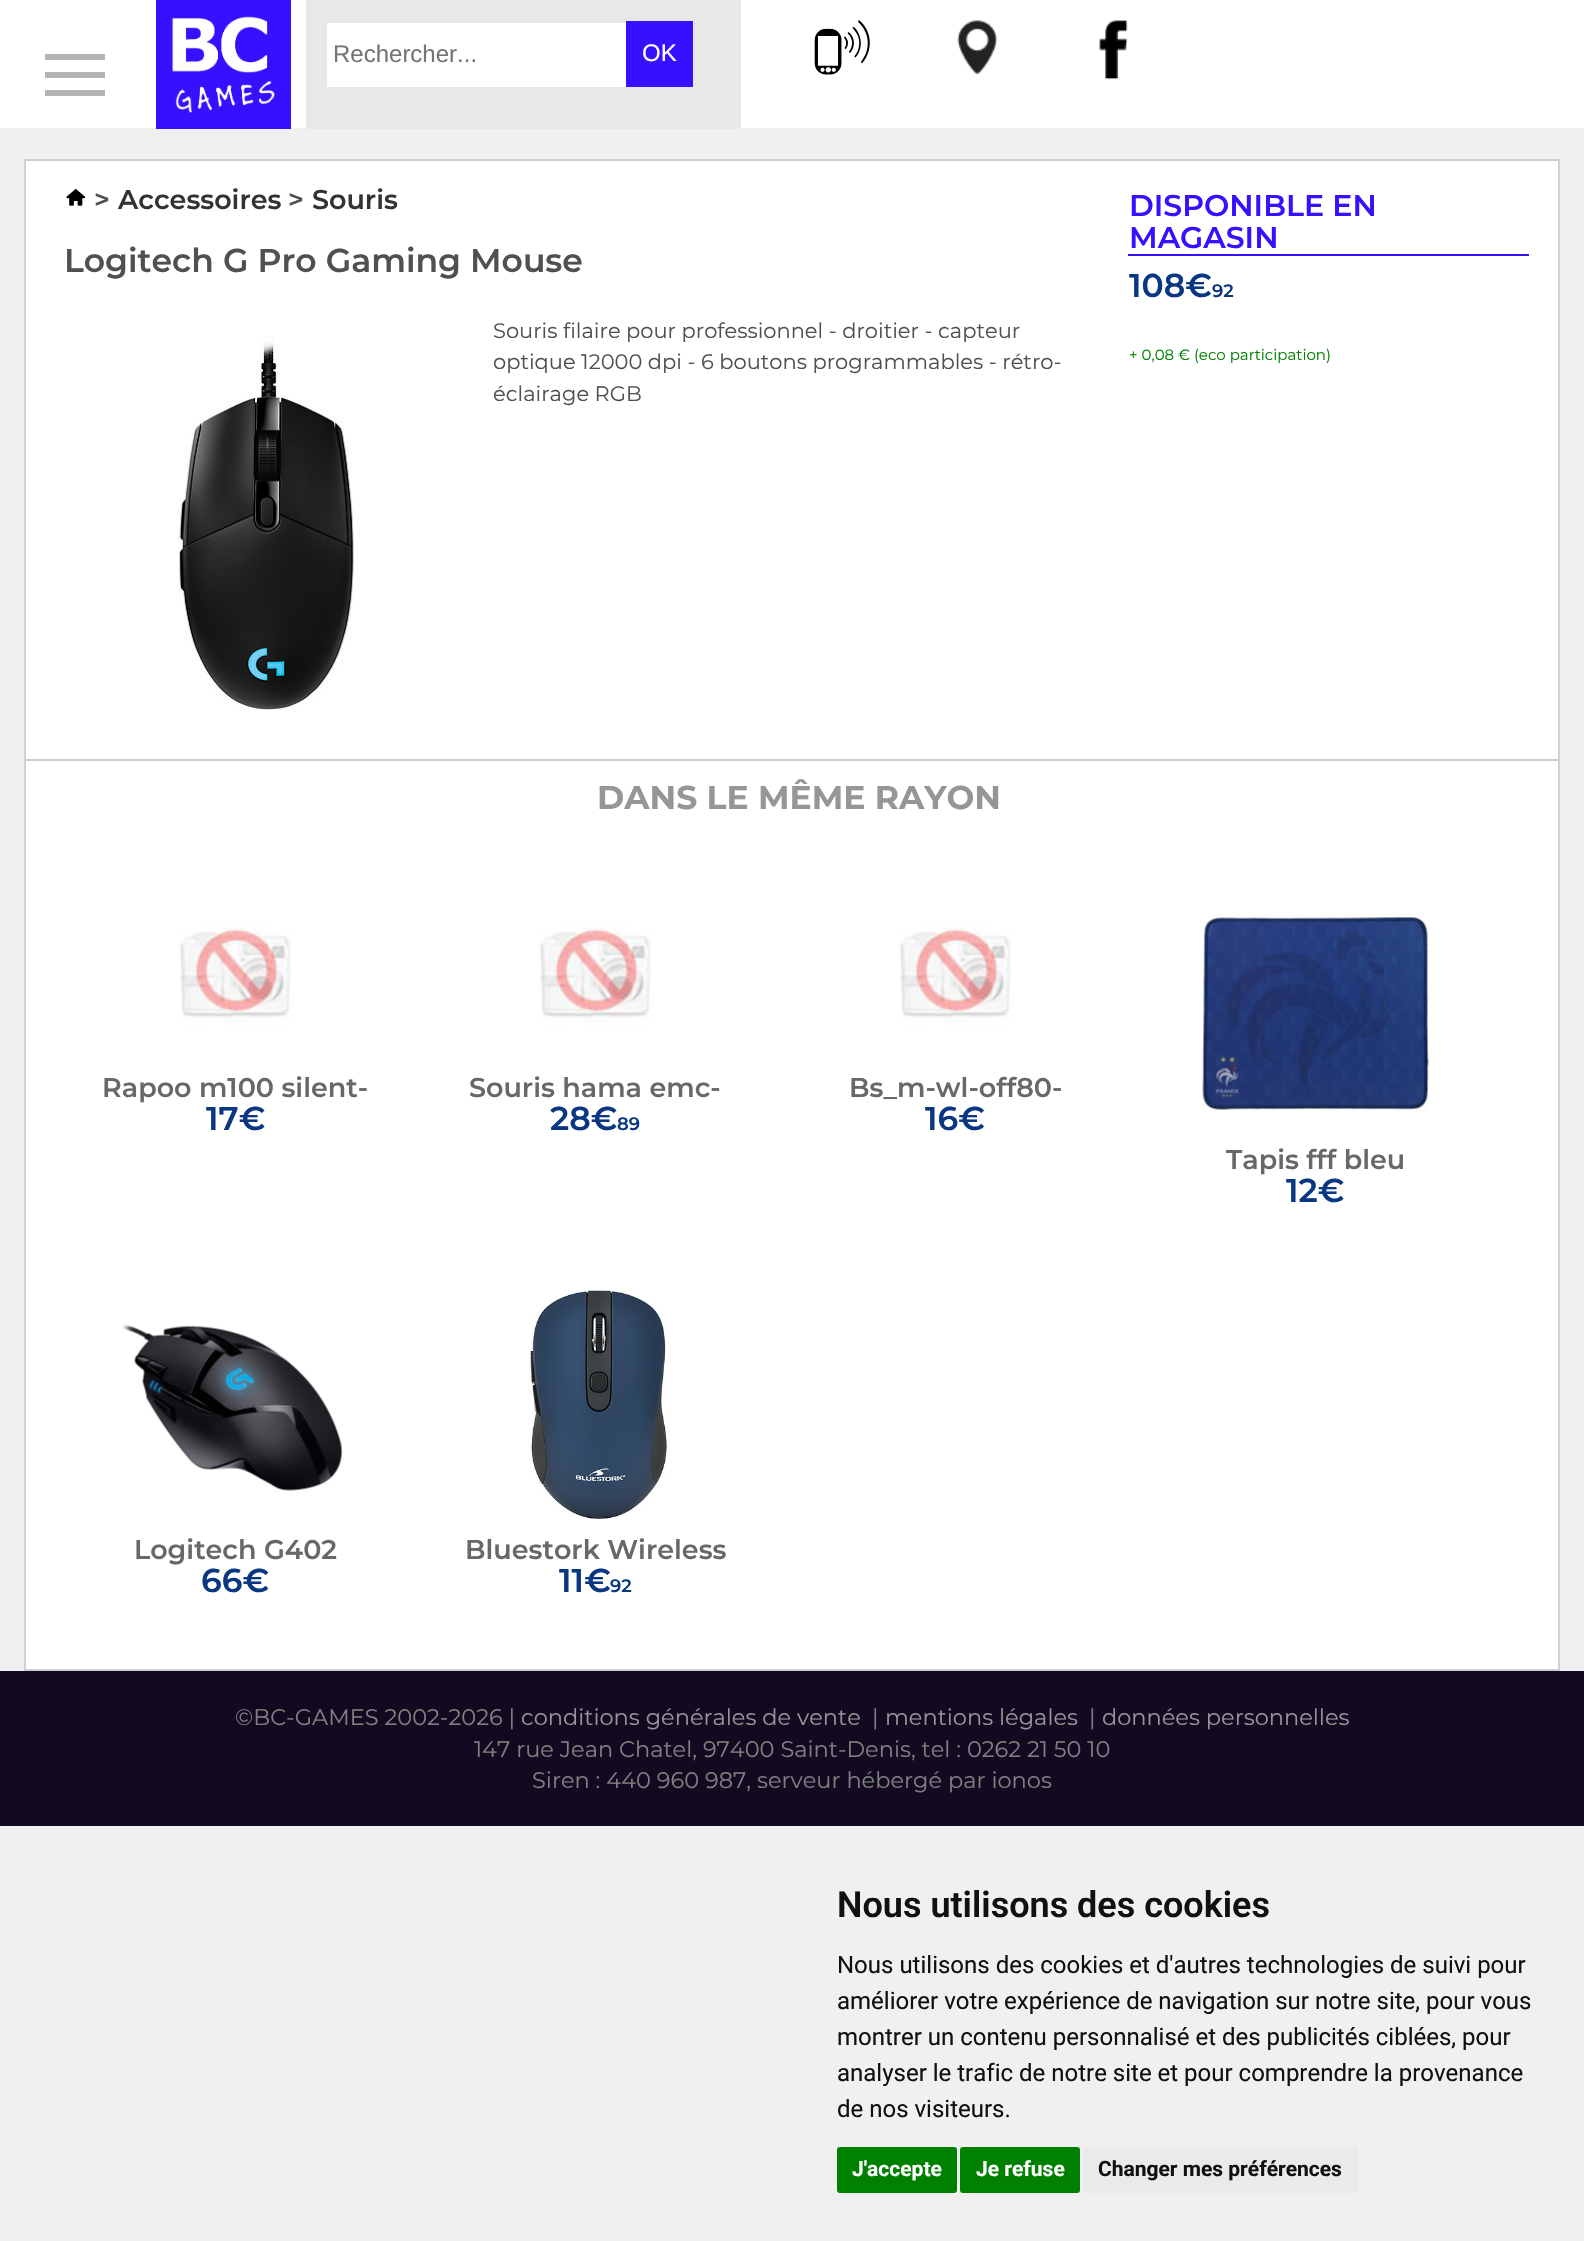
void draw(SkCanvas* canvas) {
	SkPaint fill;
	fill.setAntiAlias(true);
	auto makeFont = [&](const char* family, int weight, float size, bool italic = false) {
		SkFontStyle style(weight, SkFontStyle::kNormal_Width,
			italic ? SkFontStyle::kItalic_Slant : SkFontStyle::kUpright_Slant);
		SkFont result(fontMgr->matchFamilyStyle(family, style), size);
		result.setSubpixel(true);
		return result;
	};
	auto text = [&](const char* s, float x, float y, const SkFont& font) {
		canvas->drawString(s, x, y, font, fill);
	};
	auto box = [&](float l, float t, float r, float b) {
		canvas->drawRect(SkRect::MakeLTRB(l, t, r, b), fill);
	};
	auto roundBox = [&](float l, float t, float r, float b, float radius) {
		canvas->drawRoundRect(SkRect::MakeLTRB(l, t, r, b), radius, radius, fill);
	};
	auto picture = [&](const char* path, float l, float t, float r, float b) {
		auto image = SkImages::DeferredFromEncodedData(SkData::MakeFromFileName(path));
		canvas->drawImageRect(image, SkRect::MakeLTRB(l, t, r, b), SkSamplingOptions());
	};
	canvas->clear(0xFFF0F0F0);
	fill.setColor(0xFFFFFFFF);
	box(0, 0, 1584, 128);
	fill.setColor(0xFFB3B3B3);
	box(45, 72, 105, 78);
	box(45, 54, 105, 60);
	box(45, 90, 105, 96);
	picture("image0.png", 156, 0, 291, 129);
	fill.setColor(0xFFE8E8E8);
	box(306, 0, 741, 129);
	fill.setColor(0xFFFFFFFF);
	box(327, 23, 626, 87);
	fill.setColor(0xFF3511FF);
	box(626, 21, 693, 87);
	picture("image1.png", 814, 20, 870, 75);
	picture("image2.png", 957, 20, 998, 75);
	picture("image3.png", 1099, 20, 1128, 80);
	fill.setColor(0xFFFFFFFF);
	canvas->drawRect(SkRect::MakeLTRB(25, 160, 1559, 1670), fill);
	fill.setStyle(SkPaint::kStroke_Style);
	fill.setStrokeWidth(2);
	fill.setColor(0xFFCFCFCF);
	canvas->drawRect(SkRect::MakeLTRB(25, 160, 1559, 1670), fill);
	picture("image4.png", 66, 188, 86, 206);
	picture("image5.png", 177, 336, 354, 711);
	fill.setStyle(SkPaint::kFill_Style);
	fill.setColor(0xFF3511FF);
	box(1128, 254, 1529, 256);
	fill.setColor(0xFFCFCFCF);
	box(26, 759, 1559, 761);
	picture("image6.png", 179, 920, 292, 1027);
	picture("image7.png", 539, 920, 652, 1027);
	picture("image6.png", 899, 920, 1012, 1027);
	picture("image8.png", 1202, 912, 1429, 1111);
	picture("image9.png", 122, 1324, 343, 1491);
	picture("image10.png", 528, 1290, 667, 1519);
	fill.setColor(0xFF120A21);
	box(0, 1671, 1584, 1826);
	fill.setColor(0xFF008000);
	roundBox(837, 2147, 957, 2193, 3);
	roundBox(960, 2147, 1080, 2193, 3);
	fill.setColor(0xFFEAEAEA);
	roundBox(1083, 2147, 1358, 2193, 3);
	auto font1 = makeFont("Liberation Sans", 400, 24);
	fill.setColor(0xFF757575);
	text("Rechercher...", 333, 62, font1);
	fill.setColor(0xFFFFFFFF);
	text("OK", 642, 61, font1);
	auto font2 = makeFont("Montserrat", 600, 27);
	fill.setColor(0xFF505050);
	text(">", 94, 209, font2);
	fill.setColor(0xFF333333);
	text("Accessoires", 118, 209, font2);
	fill.setColor(0xFF505050);
	text(">", 288, 209, font2);
	fill.setColor(0xFF333333);
	text("Souris", 312, 209, font2);
	auto font3 = makeFont("Montserrat", 600, 33);
	fill.setColor(0xFF505050);
	text("Logitech G Pro Gaming Mouse", 64, 272, font3);
	auto font4 = makeFont("Montserrat", 400, 21);
	text("Souris filaire pour professionnel - droitier - capteur", 493, 338, font4);
	text("optique 12000 dpi - 6 boutons programmables - rétro-", 493, 369, font4);
	text("éclairage RGB", 493, 401, font4);
	auto font5 = makeFont("Montserrat", 600, 30);
	fill.setColor(0xFF3511FF);
	text("DISPONIBLE EN", 1129, 216, font5);
	text("MAGASIN", 1129, 248, font5);
	fill.setColor(0xFF0A3782);
	text("108€", 1129, 297, font3);
	auto font6 = makeFont("Montserrat", 600, 18);
	text("92", 1212, 297, font6);
	auto font7 = makeFont("Montserrat", 400, 15);
	fill.setColor(0xFF008000);
	text("+ 0,08 € (eco participation)", 1129, 360, font7);
	auto font8 = makeFont("Montserrat", 700, 33);
	fill.setColor(0xFF969696);
	text("DANS LE MÊME RAYON", 597, 809, font8);
	fill.setColor(0xFF686868);
	text("Rapoo m100 silent-", 102, 1097, font2);
	fill.setColor(0xFF0A3782);
	text("17€", 206, 1130, font3);
	fill.setColor(0xFF686868);
	text("Souris hama emc-", 469, 1097, font2);
	fill.setColor(0xFF0A3782);
	text("28€", 550, 1130, font3);
	text("89", 617, 1130, font6);
	fill.setColor(0xFF686868);
	text("Bs_m-wl-off80-", 849, 1097, font2);
	fill.setColor(0xFF0A3782);
	text("16€", 925, 1130, font3);
	fill.setColor(0xFF686868);
	text("Tapis fff bleu", 1226, 1169, font2);
	fill.setColor(0xFF0A3782);
	text("12€", 1286, 1202, font3);
	fill.setColor(0xFF686868);
	text("Logitech G402", 134, 1559, font2);
	fill.setColor(0xFF0A3782);
	text("66€", 201, 1592, font3);
	fill.setColor(0xFF686868);
	text("Bluestork Wireless", 465, 1559, font2);
	fill.setColor(0xFF0A3782);
	text("11€", 559, 1592, font3);
	text("92", 610, 1592, font6);
	auto font9 = makeFont("Montserrat", 400, 22.5f);
	fill.setColor(0xFF808080);
	text("©BC-GAMES 2002-2026 |", 235, 1725, font9);
	fill.setColor(0xFF969696);
	text("conditions générales de vente", 521, 1725, font9);
	fill.setColor(0xFF808080);
	text("|", 872, 1725, font9);
	fill.setColor(0xFF969696);
	text("mentions légales", 885, 1725, font9);
	fill.setColor(0xFF808080);
	text("|", 1089, 1725, font9);
	fill.setColor(0xFF969696);
	text("données personnelles", 1102, 1725, font9);
	fill.setColor(0xFF808080);
	text("147 rue Jean Chatel, 97400 Saint-Denis, tel : 0262 21 50 10", 474, 1757, font9);
	text("Siren : 440 960 987, serveur hébergé par ionos", 532, 1788, font9);
	auto font10 = makeFont("Roboto", 600, 36);
	fill.setColor(0xFF111111);
	text("Nous utilisons des cookies", 837, 1917, font10);
	auto font11 = makeFont("Roboto", 400, 24);
	text("Nous utilisons des cookies et d'autres technologies de suivi pour", 837, 1973, font11);
	text("améliorer votre expérience de navigation sur notre site, pour vous", 837, 2009, font11);
	text("montrer un contenu personnalisé et des publicités ciblées, pour", 837, 2045, font11);
	text("analyser le trafic de notre site et pour comprendre la provenance", 837, 2081, font11);
	text("de nos visiteurs.", 837, 2117, font11);
	auto font12 = makeFont("Roboto", 700, 21);
	fill.setColor(0xFFFFFFFF);
	text("J'accepte", 852, 2176, font12);
	text("Je refuse", 976, 2176, font12);
	fill.setColor(0xFF111111);
	text("Changer mes préférences", 1098, 2176, font12);
}
